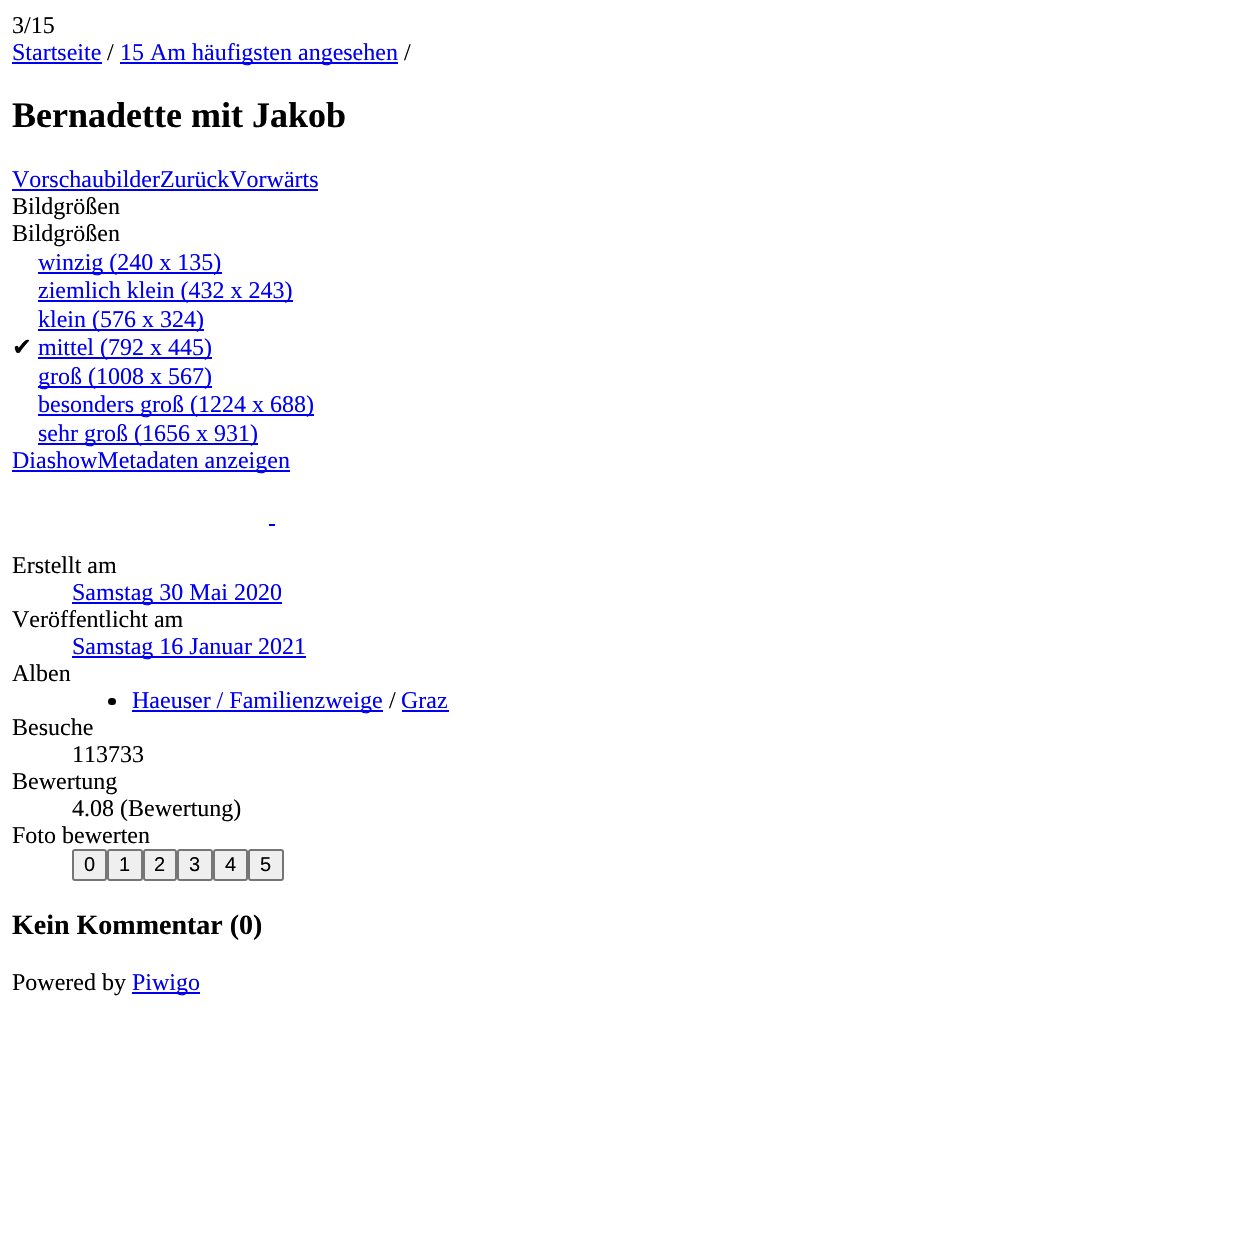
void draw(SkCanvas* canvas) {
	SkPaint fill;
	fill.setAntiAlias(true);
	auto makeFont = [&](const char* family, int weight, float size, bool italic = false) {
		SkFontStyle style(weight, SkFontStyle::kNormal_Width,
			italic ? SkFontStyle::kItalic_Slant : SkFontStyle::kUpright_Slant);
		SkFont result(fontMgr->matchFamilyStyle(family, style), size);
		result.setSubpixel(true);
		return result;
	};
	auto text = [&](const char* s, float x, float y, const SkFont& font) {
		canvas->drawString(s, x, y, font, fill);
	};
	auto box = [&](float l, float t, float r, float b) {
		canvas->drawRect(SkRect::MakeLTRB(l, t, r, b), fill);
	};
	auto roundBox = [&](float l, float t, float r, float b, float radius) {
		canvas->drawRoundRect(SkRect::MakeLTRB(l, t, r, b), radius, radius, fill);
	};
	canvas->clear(0xFFFFFFFF);
	fill.setColor(0xFF0000EE);
	box(12, 62, 102, 64);
	box(120, 62, 398, 64);
	box(12, 189, 318, 191);
	box(38, 272, 222, 274);
	box(38, 300, 293, 302);
	box(38, 329, 204, 331);
	box(38, 357, 212, 359);
	box(38, 386, 212, 388);
	box(38, 414, 314, 416);
	box(38, 443, 258, 445);
	box(12, 470, 290, 472);
	box(269, 524, 275, 526);
	box(72, 602, 282, 604);
	box(72, 656, 306, 658);
	fill.setColor(0xFF000000);
	roundBox(108, 698, 116, 705, 3.5f);
	fill.setColor(0xFF0000EE);
	box(132, 710, 383, 712);
	box(402, 710, 449, 712);
	fill.setColor(0xFFEFEFEF);
	canvas->drawRoundRect(SkRect::MakeLTRB(73, 850, 106, 880), 2, 2, fill);
	fill.setStyle(SkPaint::kStroke_Style);
	fill.setStrokeWidth(2);
	fill.setColor(0xFF767676);
	canvas->drawRoundRect(SkRect::MakeLTRB(73, 850, 106, 880), 2, 2, fill);
	fill.setStyle(SkPaint::kFill_Style);
	fill.setColor(0xFFEFEFEF);
	canvas->drawRoundRect(SkRect::MakeLTRB(108, 850, 142, 880), 2, 2, fill);
	fill.setStyle(SkPaint::kStroke_Style);
	fill.setColor(0xFF767676);
	canvas->drawRoundRect(SkRect::MakeLTRB(108, 850, 142, 880), 2, 2, fill);
	fill.setStyle(SkPaint::kFill_Style);
	fill.setColor(0xFFEFEFEF);
	canvas->drawRoundRect(SkRect::MakeLTRB(144, 850, 176, 880), 2, 2, fill);
	fill.setStyle(SkPaint::kStroke_Style);
	fill.setColor(0xFF767676);
	canvas->drawRoundRect(SkRect::MakeLTRB(144, 850, 176, 880), 2, 2, fill);
	fill.setStyle(SkPaint::kFill_Style);
	fill.setColor(0xFFEFEFEF);
	canvas->drawRoundRect(SkRect::MakeLTRB(178, 850, 212, 880), 2, 2, fill);
	fill.setStyle(SkPaint::kStroke_Style);
	fill.setColor(0xFF767676);
	canvas->drawRoundRect(SkRect::MakeLTRB(178, 850, 212, 880), 2, 2, fill);
	fill.setStyle(SkPaint::kFill_Style);
	fill.setColor(0xFFEFEFEF);
	canvas->drawRoundRect(SkRect::MakeLTRB(214, 850, 247, 880), 2, 2, fill);
	fill.setStyle(SkPaint::kStroke_Style);
	fill.setColor(0xFF767676);
	canvas->drawRoundRect(SkRect::MakeLTRB(214, 850, 247, 880), 2, 2, fill);
	fill.setStyle(SkPaint::kFill_Style);
	fill.setColor(0xFFEFEFEF);
	canvas->drawRoundRect(SkRect::MakeLTRB(249, 850, 283, 880), 2, 2, fill);
	fill.setStyle(SkPaint::kStroke_Style);
	fill.setColor(0xFF767676);
	canvas->drawRoundRect(SkRect::MakeLTRB(249, 850, 283, 880), 2, 2, fill);
	fill.setStyle(SkPaint::kFill_Style);
	fill.setColor(0xFF0000EE);
	box(132, 992, 200, 994);
	auto font1 = makeFont("Liberation Serif", 400, 24);
	fill.setColor(0xFF000000);
	text("3/15", 12, 33, font1);
	fill.setColor(0xFF0000EE);
	text("Startseite", 12, 60, font1);
	fill.setColor(0xFF000000);
	text("/", 107, 60, font1);
	fill.setColor(0xFF0000EE);
	text("15 Am häufigsten angesehen", 120, 60, font1);
	fill.setColor(0xFF000000);
	text("/", 404, 60, font1);
	auto font2 = makeFont("Liberation Serif", 700, 36);
	text("Bernadette mit Jakob", 12, 127, font2);
	fill.setColor(0xFF0000EE);
	text("VorschaubilderZurückVorwärts", 12, 187, font1);
	fill.setColor(0xFF000000);
	text("Bildgrößen", 12, 214, font1);
	text("Bildgrößen", 12, 241, font1);
	fill.setColor(0xFF0000EE);
	text("winzig (240 x 135)", 38, 270, font1);
	text("ziemlich klein (432 x 243)", 38, 298, font1);
	text("klein (576 x 324)", 38, 327, font1);
	auto font3 = makeFont("DejaVu Sans", 400, 24);
	fill.setColor(0xFF000000);
	text("✔", 12, 355, font3);
	fill.setColor(0xFF0000EE);
	text("mittel (792 x 445)", 38, 355, font1);
	text("groß (1008 x 567)", 38, 384, font1);
	text("besonders groß (1224 x 688)", 38, 412, font1);
	text("sehr groß (1656 x 931)", 38, 441, font1);
	text("DiashowMetadaten anzeigen", 12, 468, font1);
	fill.setColor(0xFF000000);
	text("Erstellt am", 12, 573, font1);
	fill.setColor(0xFF0000EE);
	text("Samstag 30 Mai 2020", 72, 600, font1);
	fill.setColor(0xFF000000);
	text("Veröffentlicht am", 12, 627, font1);
	fill.setColor(0xFF0000EE);
	text("Samstag 16 Januar 2021", 72, 654, font1);
	fill.setColor(0xFF000000);
	text("Alben", 12, 681, font1);
	fill.setColor(0xFF0000EE);
	text("Haeuser / Familienzweige", 132, 708, font1);
	fill.setColor(0xFF000000);
	text("/", 389, 708, font1);
	fill.setColor(0xFF0000EE);
	text("Graz", 401, 708, font1);
	fill.setColor(0xFF000000);
	text("Besuche", 12, 735, font1);
	text("113733", 72, 762, font1);
	text("Bewertung", 12, 789, font1);
	text("4.08 (Bewertung)", 72, 816, font1);
	text("Foto bewerten", 12, 843, font1);
	auto font4 = makeFont("Liberation Sans", 400, 20);
	text("0", 84, 871, font4);
	text("1", 119, 871, font4);
	text("2", 154, 871, font4);
	text("3", 189, 871, font4);
	text("4", 225, 871, font4);
	text("5", 260, 871, font4);
	auto font5 = makeFont("Liberation Serif", 700, 28);
	text("Kein Kommentar (0)", 12, 934, font5);
	text("Powered by", 12, 990, font1);
	fill.setColor(0xFF0000EE);
	text("Piwigo", 132, 990, font1);
}
